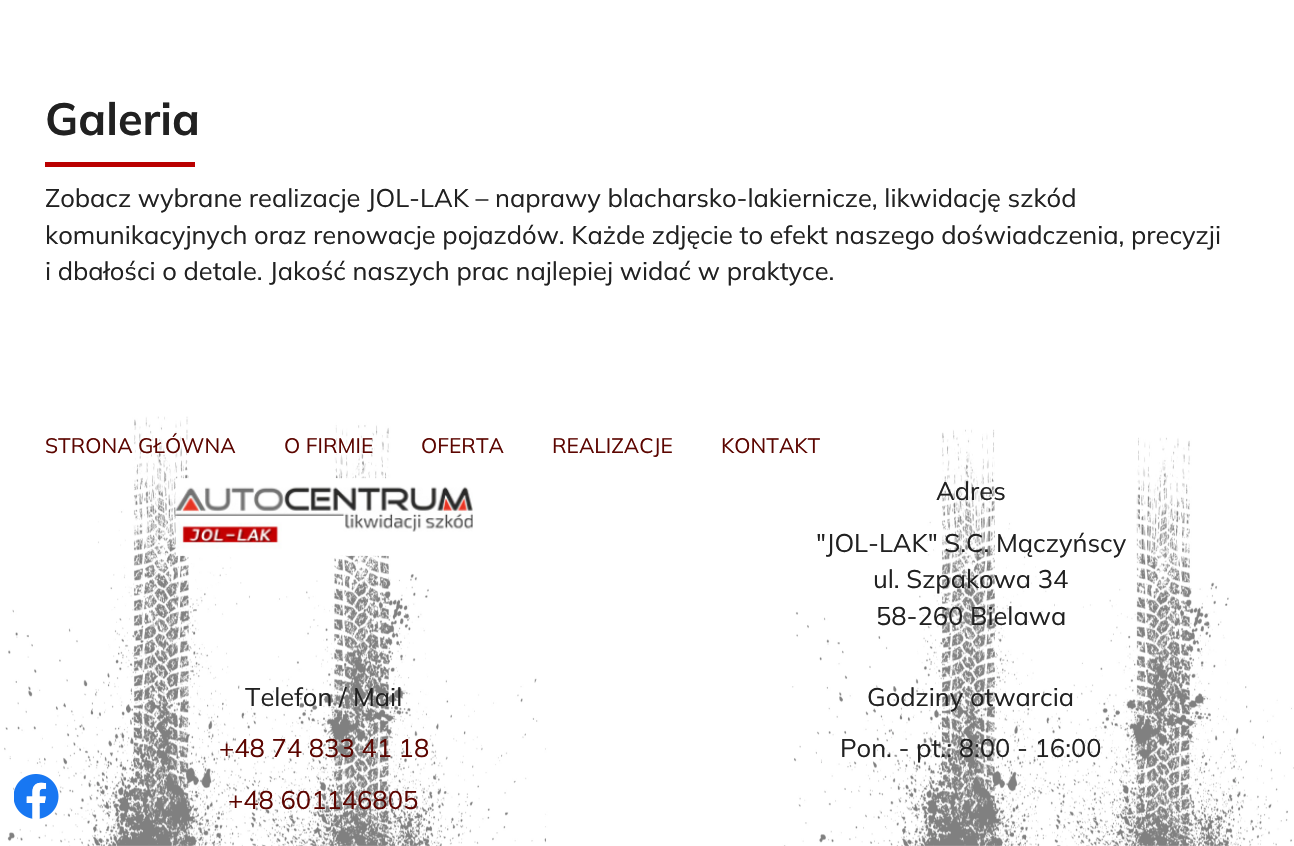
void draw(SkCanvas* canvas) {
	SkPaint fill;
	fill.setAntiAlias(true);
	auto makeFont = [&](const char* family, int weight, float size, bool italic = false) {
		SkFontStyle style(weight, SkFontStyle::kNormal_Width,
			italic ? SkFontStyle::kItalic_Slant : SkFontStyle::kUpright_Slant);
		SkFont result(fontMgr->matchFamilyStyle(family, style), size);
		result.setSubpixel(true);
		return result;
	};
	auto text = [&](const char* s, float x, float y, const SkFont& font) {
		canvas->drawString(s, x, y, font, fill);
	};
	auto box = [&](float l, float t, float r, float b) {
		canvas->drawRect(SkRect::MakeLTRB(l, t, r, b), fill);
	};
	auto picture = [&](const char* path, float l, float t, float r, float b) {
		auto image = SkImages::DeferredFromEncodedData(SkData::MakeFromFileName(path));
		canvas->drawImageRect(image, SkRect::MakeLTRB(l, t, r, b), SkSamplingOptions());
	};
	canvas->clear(0xFFFFFFFF);
	fill.setColor(0xFFBA0000);
	box(45, 162, 195, 167);
	picture("image2.png", 4, 416, 1294, 846);
	picture("image0.png", 14, 774, 59, 819);
	picture("image1.png", 175, 478, 473, 556);
	auto font1 = makeFont("Mulish", 700, 45);
	fill.setColor(0xFF212121);
	text("Galeria", 45, 135, font1);
	auto font2 = makeFont("Mulish", 400, 25.5f);
	text("Zobacz wybrane realizacje JOL-LAK – naprawy blacharsko-lakiernicze, likwidację szkód", 45, 207, font2);
	text("komunikacyjnych oraz renowacje pojazdów. Każde zdjęcie to efekt naszego doświadczenia, precyzji", 45, 244, font2);
	text("i dbałości o detale. Jakość naszych prac najlepiej widać w praktyce.", 45, 280, font2);
	auto font3 = makeFont("Mulish", 400, 21);
	fill.setColor(0xFF5C0500);
	text("STRONA GŁÓWNA", 45, 453, font3);
	text("O FIRMIE", 284, 453, font3);
	text("OFERTA", 421, 453, font3);
	text("REALIZACJE", 552, 453, font3);
	text("KONTAKT", 721, 453, font3);
	fill.setColor(0xFF212121);
	text("Adres", 936, 500, font2);
	text("\"JOL-LAK\" S.C. Mączyńscy", 816, 552, font2);
	text("ul. Szpakowa 34", 873, 588, font2);
	text("58-260 Bielawa", 876, 625, font2);
	text("Telefon / Mail", 245, 706, font2);
	fill.setColor(0xFF5C0500);
	text("+48 74 833 41 18", 219, 757, font2);
	text("+48 601146805", 228, 809, font2);
	fill.setColor(0xFF212121);
	text("Godziny otwarcia", 867, 706, font2);
	text("Pon. - pt.: 8:00 - 16:00", 840, 757, font2);
}
